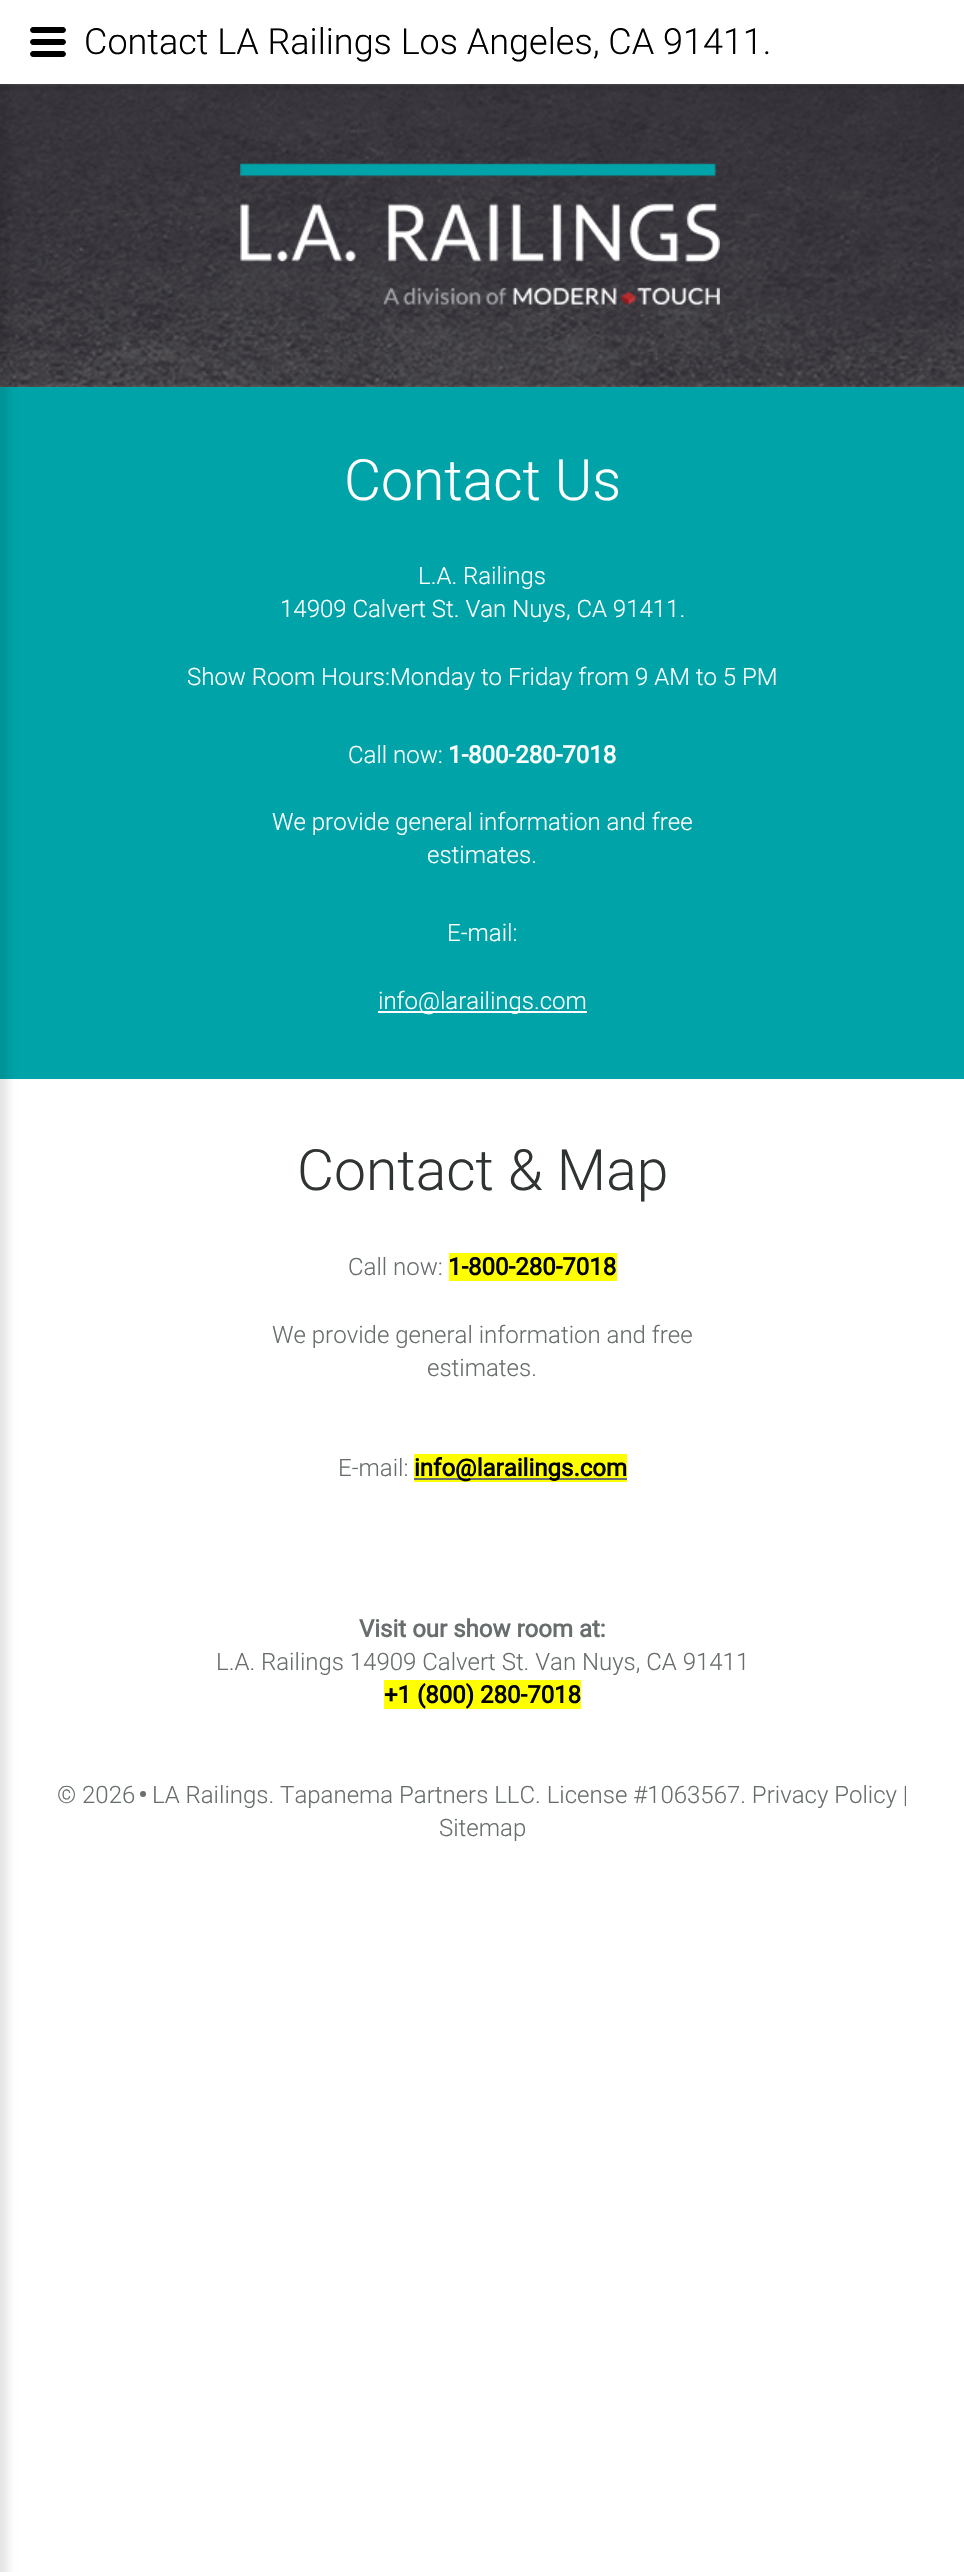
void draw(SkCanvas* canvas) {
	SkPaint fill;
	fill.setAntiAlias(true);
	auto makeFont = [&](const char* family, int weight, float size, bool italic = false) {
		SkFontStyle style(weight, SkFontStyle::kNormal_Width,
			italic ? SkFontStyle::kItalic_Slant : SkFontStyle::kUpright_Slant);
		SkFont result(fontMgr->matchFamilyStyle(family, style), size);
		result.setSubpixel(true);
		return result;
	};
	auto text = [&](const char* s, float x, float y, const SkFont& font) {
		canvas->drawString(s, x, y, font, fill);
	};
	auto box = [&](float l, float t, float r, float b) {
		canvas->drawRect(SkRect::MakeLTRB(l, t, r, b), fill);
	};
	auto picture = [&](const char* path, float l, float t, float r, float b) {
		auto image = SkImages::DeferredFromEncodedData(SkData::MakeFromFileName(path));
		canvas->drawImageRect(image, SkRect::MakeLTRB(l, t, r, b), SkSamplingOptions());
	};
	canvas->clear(0xFFFFFFFF);
	picture("image0.png", 0, 84, 964, 387);
	fill.setColor(0xFF00A3A8);
	box(0, 387, 964, 1079);
	fill.setColor(0x1A000000);
	fill.setMaskFilter(SkMaskFilter::MakeBlur(kNormal_SkBlurStyle, 4));
	canvas->drawRect(SkRect::MakeLTRB(-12, -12, 8, 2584), fill);
	fill.setMaskFilter(nullptr);
	fill.setMaskFilter(SkMaskFilter::MakeBlur(kNormal_SkBlurStyle, 2));
	canvas->drawRect(SkRect::MakeLTRB(0, 5, 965, 89), fill);
	fill.setMaskFilter(nullptr);
	fill.setColor(0xFFFFFFFF);
	box(0, 0, 964, 84);
	fill.setColor(0xFF000000);
	canvas->drawPath(SkPathBuilder().moveTo(63, 45).lineTo(33, 45).cubicTo(31.5f, 45, 30, 43.5f, 30, 42).cubicTo(30, 40.5f, 31.5f, 39, 33, 39).lineTo(63, 39).cubicTo(64.5f, 39, 66, 40.5f, 66, 42).cubicTo(66, 43.5f, 64.5f, 45, 63, 45).close().moveTo(63, 57).lineTo(33, 57).cubicTo(31.5f, 57, 30, 55.5f, 30, 54).cubicTo(30, 52.5f, 31.5f, 51, 33, 51).lineTo(63, 51).cubicTo(64.5f, 51, 66, 52.5f, 66, 54).cubicTo(66, 55.5f, 64.5f, 57, 63, 57).close().moveTo(63, 33).lineTo(33, 33).cubicTo(31.5f, 33, 30, 31.5f, 30, 30).cubicTo(30, 28.5f, 31.5f, 27, 33, 27).lineTo(63, 27).cubicTo(64.5f, 27, 66, 28.5f, 66, 30).cubicTo(66, 31.5f, 64.5f, 33, 63, 33).close().detach(), fill);
	picture("image1.png", 240, 163, 720, 305);
	fill.setColor(0xFFFFFFFF);
	box(378, 1011, 587, 1013);
	fill.setColor(0xFFFFFF00);
	box(449, 1253, 617, 1281);
	box(414, 1454, 627, 1482);
	fill.setColor(0xFF686D6E);
	box(414, 1478, 627, 1480);
	fill.setColor(0xFFFFFF00);
	box(384, 1680, 581, 1709);
	fill.setColor(0xFF686D6E);
	canvas->drawCircle(143, 1794, 3, fill);
	auto font1 = makeFont("Roboto", 300, 36);
	fill.setColor(0xFF000000);
	text("Contact LA Railings Los Angeles, CA 91411.", 84, 54, font1);
	auto font2 = makeFont("Roboto", 300, 57);
	fill.setColor(0xFFFFFFFF);
	text("Contact Us", 344, 500, font2);
	auto font3 = makeFont("Roboto", 300, 24);
	text("L.A. Railings", 418, 584, font3);
	text("14909 Calvert St. Van Nuys, CA 91411.", 280, 617, font3);
	text("Show Room Hours:Monday to Friday from 9 AM to 5 PM", 187, 685, font3);
	text("Call now:", 348, 763, font3);
	auto font4 = makeFont("Roboto", 700, 24);
	text("1-800-280-7018", 448, 763, font4);
	text("We provide general information and free", 272, 830, font3);
	text("estimates.", 427, 863, font3);
	text("E-mail:", 447, 941, font3);
	text("info@larailings.com", 378, 1009, font3);
	fill.setColor(0xFF303334);
	text("Contact & Map", 297, 1190, font2);
	fill.setColor(0xFF686D6E);
	text("Call now:", 348, 1275, font3);
	fill.setColor(0xFF000000);
	text("1-800-280-7018", 448, 1275, font4);
	fill.setColor(0xFF686D6E);
	text("We provide general information and free", 272, 1343, font3);
	text("estimates.", 427, 1376, font3);
	text("E-mail:", 338, 1476, font3);
	fill.setColor(0xFF000000);
	text("info@larailings.com", 414, 1476, font4);
	fill.setColor(0xFF686D6E);
	text("Visit our show room at:", 359, 1637, font4);
	text("L.A. Railings 14909 Calvert St. Van Nuys, CA 91411", 216, 1670, font3);
	fill.setColor(0xFF000000);
	text("+1 (800) 280-7018", 384, 1703, font4);
	fill.setColor(0xFF686D6E);
	text("© 2026", 57, 1803, font3);
	text("LA Railings. Tapanema Partners LLC. License #1063567. Privacy Policy |", 152, 1803, font3);
	text("Sitemap", 439, 1836, font3);
}
